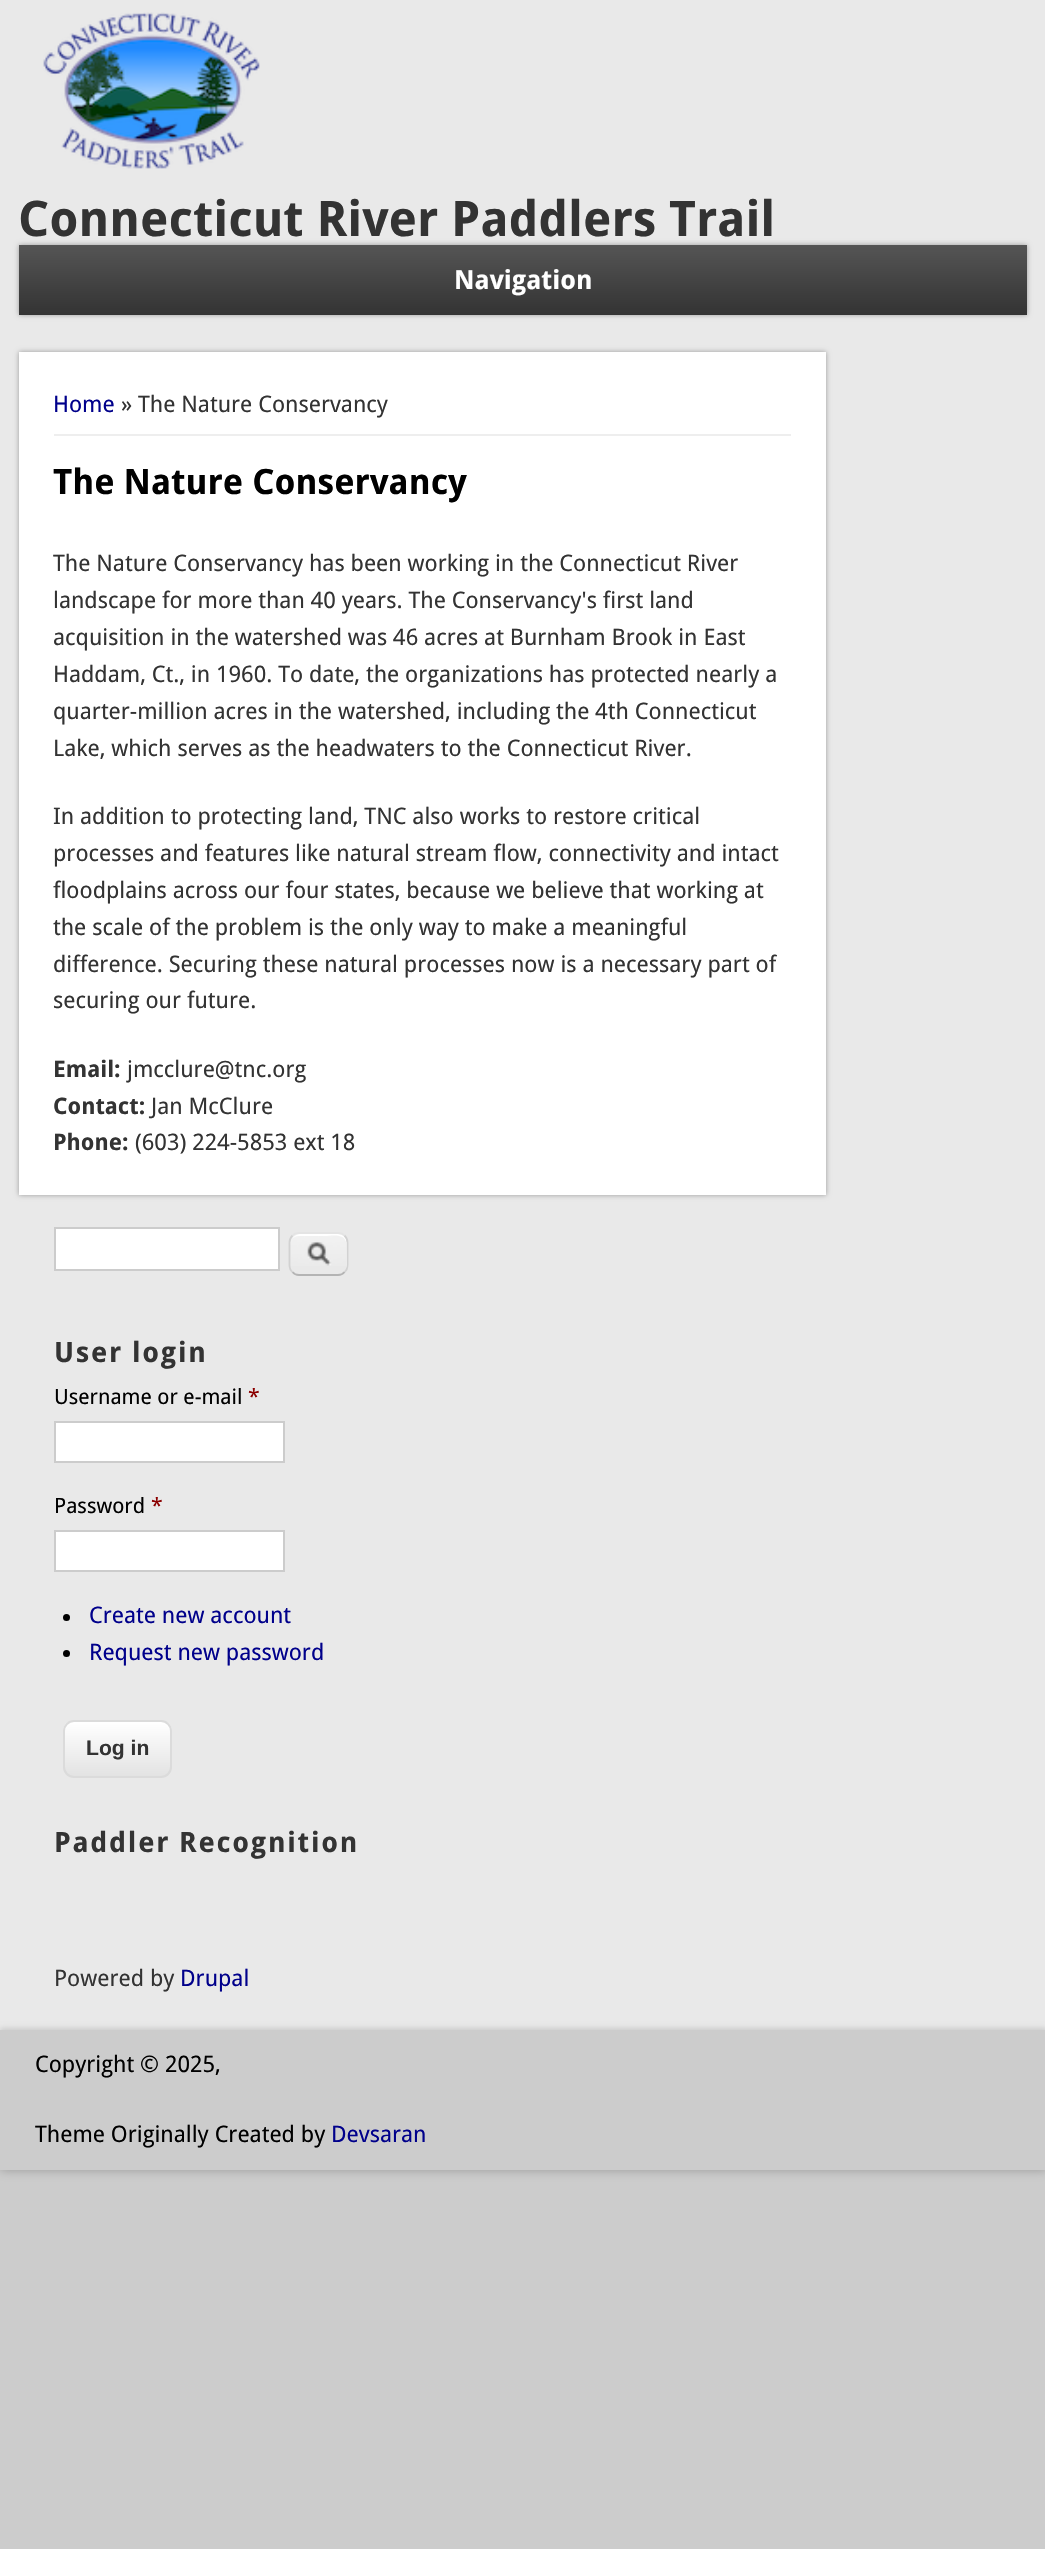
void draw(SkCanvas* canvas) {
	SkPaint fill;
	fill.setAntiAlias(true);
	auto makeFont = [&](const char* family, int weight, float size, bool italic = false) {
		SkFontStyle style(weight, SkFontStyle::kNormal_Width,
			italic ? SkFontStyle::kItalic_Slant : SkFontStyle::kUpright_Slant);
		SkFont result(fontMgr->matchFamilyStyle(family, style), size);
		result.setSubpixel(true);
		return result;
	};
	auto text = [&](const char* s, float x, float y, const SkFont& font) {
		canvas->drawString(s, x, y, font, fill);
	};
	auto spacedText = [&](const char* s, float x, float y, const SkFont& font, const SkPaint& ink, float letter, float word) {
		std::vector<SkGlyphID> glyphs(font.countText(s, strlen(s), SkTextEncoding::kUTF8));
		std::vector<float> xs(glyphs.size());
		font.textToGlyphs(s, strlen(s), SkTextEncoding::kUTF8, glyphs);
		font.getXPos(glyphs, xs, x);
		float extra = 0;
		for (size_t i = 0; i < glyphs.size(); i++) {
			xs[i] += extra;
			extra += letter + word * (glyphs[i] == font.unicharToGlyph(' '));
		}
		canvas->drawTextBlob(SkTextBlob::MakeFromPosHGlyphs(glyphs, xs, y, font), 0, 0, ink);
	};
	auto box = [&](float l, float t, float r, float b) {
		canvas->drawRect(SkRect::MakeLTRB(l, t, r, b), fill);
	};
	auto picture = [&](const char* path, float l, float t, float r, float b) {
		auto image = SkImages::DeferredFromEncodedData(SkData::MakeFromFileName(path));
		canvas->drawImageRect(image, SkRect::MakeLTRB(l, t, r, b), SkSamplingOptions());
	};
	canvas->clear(0xFFCCCCCC);
	fill.setColor(0xFF999999);
	fill.setMaskFilter(SkMaskFilter::MakeBlur(kNormal_SkBlurStyle, 5));
	canvas->drawRect(SkRect::MakeLTRB(0, 0, 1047, 2170), fill);
	fill.setMaskFilter(nullptr);
	fill.setColor(0xFFE9E9E9);
	box(0, 0, 1045, 2030);
	picture("image0.png", 43, 12, 260, 169);
	fill.setColor(0xFF999999);
	fill.setMaskFilter(SkMaskFilter::MakeBlur(kNormal_SkBlurStyle, 2.5f));
	canvas->drawRect(SkRect::MakeLTRB(19, 245, 1027, 315), fill);
	fill.setMaskFilter(nullptr);
	{
		const SkColor colors[] = {0xFF555555, 0xFF333333, 0xFF555555, 0xFF333333};
		const float stops[] = {0, 0.5f, 0.5f, 1};
		const SkPoint ends[] = {{523, 245}, {523, 385}};
		fill.setShader(SkGradientShader::MakeLinear(ends, colors, stops, 4, SkTileMode::kClamp));
		fill.setAlpha(255);
	}
	box(19, 245, 1027, 315);
	fill.setShader(nullptr);
	fill.setColor(0xFF999999);
	fill.setMaskFilter(SkMaskFilter::MakeBlur(kNormal_SkBlurStyle, 2.5f));
	canvas->drawRect(SkRect::MakeLTRB(19, 352, 826, 1195), fill);
	fill.setMaskFilter(nullptr);
	fill.setColor(0xFFFFFFFF);
	box(19, 352, 826, 1195);
	fill.setColor(0xFFEEEEEE);
	box(54, 434, 791, 436);
	fill.setColor(0xFFFFFFFF);
	canvas->drawRect(SkRect::MakeLTRB(55, 1228, 279, 1270), fill);
	fill.setStyle(SkPaint::kStroke_Style);
	fill.setStrokeWidth(2);
	fill.setColor(0xFFCCCCCC);
	canvas->drawRect(SkRect::MakeLTRB(55, 1228, 279, 1270), fill);
	picture("image1.png", 289, 1234, 348, 1266);
	fill.setStyle(SkPaint::kFill_Style);
	fill.setColor(0xFFFFFFFF);
	canvas->drawPath(SkPathBuilder().moveTo(299, 1236).lineTo(325, 1236).cubicTo(331, 1236, 344, 1233, 346, 1242).lineTo(346, 1270).cubicTo(347, 1268, 347, 1267, 347, 1265).lineTo(347, 1243).cubicTo(347, 1238, 343, 1234, 338, 1234).lineTo(300, 1234).cubicTo(297, 1234, 294, 1236, 292, 1239).cubicTo(294, 1237, 296, 1236, 299, 1236).close().detach(), fill);
	fill.setStyle(SkPaint::kStroke_Style);
	fill.setStrokeWidth(1.8f);
	fill.setColor(0xFFE4E4E4);
	canvas->drawPath(SkPathBuilder().moveTo(292.5f, 1235.5f).cubicTo(294, 1234, 296.5f, 1233, 299, 1233).lineTo(338, 1233).cubicTo(340.5f, 1233, 343, 1234, 344.5f, 1235.5f).detach(), fill);
	fill.setColor(0xFFD2D2D2);
	canvas->drawPath(SkPathBuilder().moveTo(344.5f, 1235.5f).cubicTo(346.5f, 1237.5f, 347.5f, 1240, 347.5f, 1242.5f).lineTo(347.5f, 1265).cubicTo(347.5f, 1268, 346.5f, 1270.5f, 344.5f, 1272).detach(), fill);
	fill.setColor(0xFFB4B4B4);
	canvas->drawPath(SkPathBuilder().moveTo(344.5f, 1272).cubicTo(343, 1274, 340.5f, 1275, 338, 1275).lineTo(299, 1275).cubicTo(296.5f, 1275, 294, 1274, 292.5f, 1272).detach(), fill);
	fill.setColor(0xFFD2D2D2);
	canvas->drawPath(SkPathBuilder().moveTo(292.5f, 1272).cubicTo(290.5f, 1270.5f, 289.5f, 1268, 289.5f, 1265).lineTo(289.5f, 1242.5f).cubicTo(289.5f, 1240, 290.5f, 1237.5f, 292.5f, 1235.5f).detach(), fill);
	fill.setStyle(SkPaint::kFill_Style);
	fill.setColor(0xFFFFFFFF);
	canvas->drawRect(SkRect::MakeLTRB(55, 1422, 284, 1462), fill);
	fill.setStyle(SkPaint::kStroke_Style);
	fill.setStrokeWidth(2);
	fill.setColor(0xFFCCCCCC);
	canvas->drawRect(SkRect::MakeLTRB(55, 1422, 284, 1462), fill);
	fill.setStyle(SkPaint::kFill_Style);
	fill.setColor(0xFFFFFFFF);
	canvas->drawRect(SkRect::MakeLTRB(55, 1531, 284, 1571), fill);
	fill.setStyle(SkPaint::kStroke_Style);
	fill.setColor(0xFFCCCCCC);
	canvas->drawRect(SkRect::MakeLTRB(55, 1531, 284, 1571), fill);
	fill.setStyle(SkPaint::kFill_Style);
	fill.setColor(0xFF000000);
	canvas->drawCircle(66.5f, 1617.5f, 3.5f, fill);
	canvas->drawCircle(66.5f, 1653.5f, 3.5f, fill);
	canvas->save();
	canvas->clipPath(SkPathBuilder().moveTo(74, 1720).lineTo(161, 1720).cubicTo(167, 1720, 172, 1725, 172, 1731).lineTo(172, 1767).cubicTo(172, 1773, 167, 1778, 161, 1778).lineTo(74, 1778).cubicTo(68, 1778, 63, 1773, 63, 1767).lineTo(63, 1731).cubicTo(63, 1725, 68, 1720, 74, 1720).close().detach(), true);
	{
		const SkColor colors[] = {0xFFFFFFFF, 0xFFE3E3E3};
		const float stops[] = {0, 1};
		const SkPoint ends[] = {{117, 1722}, {117, 1776}};
		fill.setShader(SkGradientShader::MakeLinear(ends, colors, stops, 2, SkTileMode::kClamp));
		fill.setAlpha(255);
	}
	box(63, 1722, 172, 1776);
	canvas->restore();
	fill.setShader(nullptr);
	fill.setColor(0xFFFFFFFF);
	canvas->drawPath(SkPathBuilder().moveTo(74, 1724).lineTo(161, 1724).cubicTo(166, 1724, 170, 1728, 170, 1732).cubicTo(170, 1719, 155, 1722, 146, 1722).lineTo(88, 1722).cubicTo(80, 1722, 65, 1719, 65, 1732).cubicTo(65, 1728, 69, 1724, 74, 1724).close().detach(), fill);
	fill.setStyle(SkPaint::kStroke_Style);
	fill.setColor(0xFFDBDBDB);
	canvas->drawRoundRect(SkRect::MakeLTRB(64, 1721, 171, 1777), 10, 10, fill);
	canvas->save();
	canvas->clipRect(SkRect::MakeLTRB(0, 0, 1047, 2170));
	fill.setStyle(SkPaint::kFill_Style);
	fill.setColor(0xFFCCCCCC);
	fill.setMaskFilter(SkMaskFilter::MakeBlur(kNormal_SkBlurStyle, 2.5f));
	canvas->drawRect(SkRect::MakeLTRB(0, 2028, 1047, 2168), fill);
	fill.setMaskFilter(nullptr);
	canvas->restore();
	box(0, 2030, 1045, 2170);
	auto font1 = makeFont("Droid Sans", 700, 49);
	fill.setColor(0xFF333333);
	text("Connecticut River Paddlers Trail", 18, 236, font1);
	auto font2 = makeFont("Droid Sans", 700, 26.25f);
	fill.setColor(0xFFFFFFFF);
	text("Navigation", 454, 289, font2);
	auto font3 = makeFont("Droid Sans", 400, 22.75f);
	fill.setColor(0xFF00008B);
	text("Home", 53, 412, font3);
	fill.setColor(0xFF333333);
	text("» The Nature Conservancy", 121, 412, font3);
	auto font4 = makeFont("Droid Sans", 700, 35);
	fill.setColor(0xFF000000);
	text("The Nature Conservancy", 53, 494, font4);
	fill.setColor(0xFF333333);
	text("The Nature Conservancy has been working in the Connecticut River", 53, 571, font3);
	text("landscape for more than 40 years. The Conservancy's first land", 53, 608, font3);
	text("acquisition in the watershed was 46 acres at Burnham Brook in East", 53, 645, font3);
	text("Haddam, Ct., in 1960. To date, the organizations has protected nearly a", 53, 682, font3);
	text("quarter-million acres in the watershed, including the 4th Connecticut", 53, 719, font3);
	text("Lake, which serves as the headwaters to the Connecticut River.", 53, 756, font3);
	text("In addition to protecting land, TNC also works to restore critical", 53, 824, font3);
	text("processes and features like natural stream flow, connectivity and intact", 53, 861, font3);
	text("floodplains across our four states, because we believe that working at", 53, 898, font3);
	text("the scale of the problem is the only way to make a meaningful", 53, 935, font3);
	text("difference. Securing these natural processes now is a necessary part of", 53, 972, font3);
	text("securing our future.", 53, 1008, font3);
	auto font5 = makeFont("Droid Sans", 700, 22.75f);
	text("Email:", 53, 1077, font5);
	text("jmcclure@tnc.org", 127, 1077, font3);
	text("Contact:", 53, 1114, font5);
	text("Jan McClure", 151, 1114, font3);
	text("Phone:", 53, 1150, font5);
	text("(603) 224-5853 ext 18", 135, 1150, font3);
	auto font6 = makeFont("Droid Sans", 700, 28);
	spacedText("User login", 54, 1362, font6, fill, 1.75f, 0);
	auto font7 = makeFont("Droid Sans", 400, 21.1f);
	fill.setColor(0xFF000000);
	text("Username or e-mail", 54, 1404, font7);
	fill.setColor(0xFF8B0000);
	text("*", 248, 1404, font7);
	fill.setColor(0xFF000000);
	text("Password", 54, 1513, font7);
	fill.setColor(0xFF8B0000);
	text("*", 151, 1513, font7);
	fill.setColor(0xFF00008B);
	text("Create new account", 89, 1623, font3);
	text("Request new password", 89, 1660, font3);
	auto font8 = makeFont("Liberation Sans", 700, 21.1f);
	fill.setColor(0xFF333333);
	text("Log in", 86, 1755, font8);
	spacedText("Paddler Recognition", 54, 1852, font6, fill, 1.75f, 0);
	text("Powered by", 54, 1986, font3);
	fill.setColor(0xFF00008B);
	text("Drupal", 180, 1986, font3);
	fill.setColor(0xFF000000);
	text("Copyright © 2025,", 35, 2072, font3);
	text("Theme Originally Created by", 35, 2142, font3);
	fill.setColor(0xFF00008B);
	text("Devsaran", 331, 2142, font3);
}
